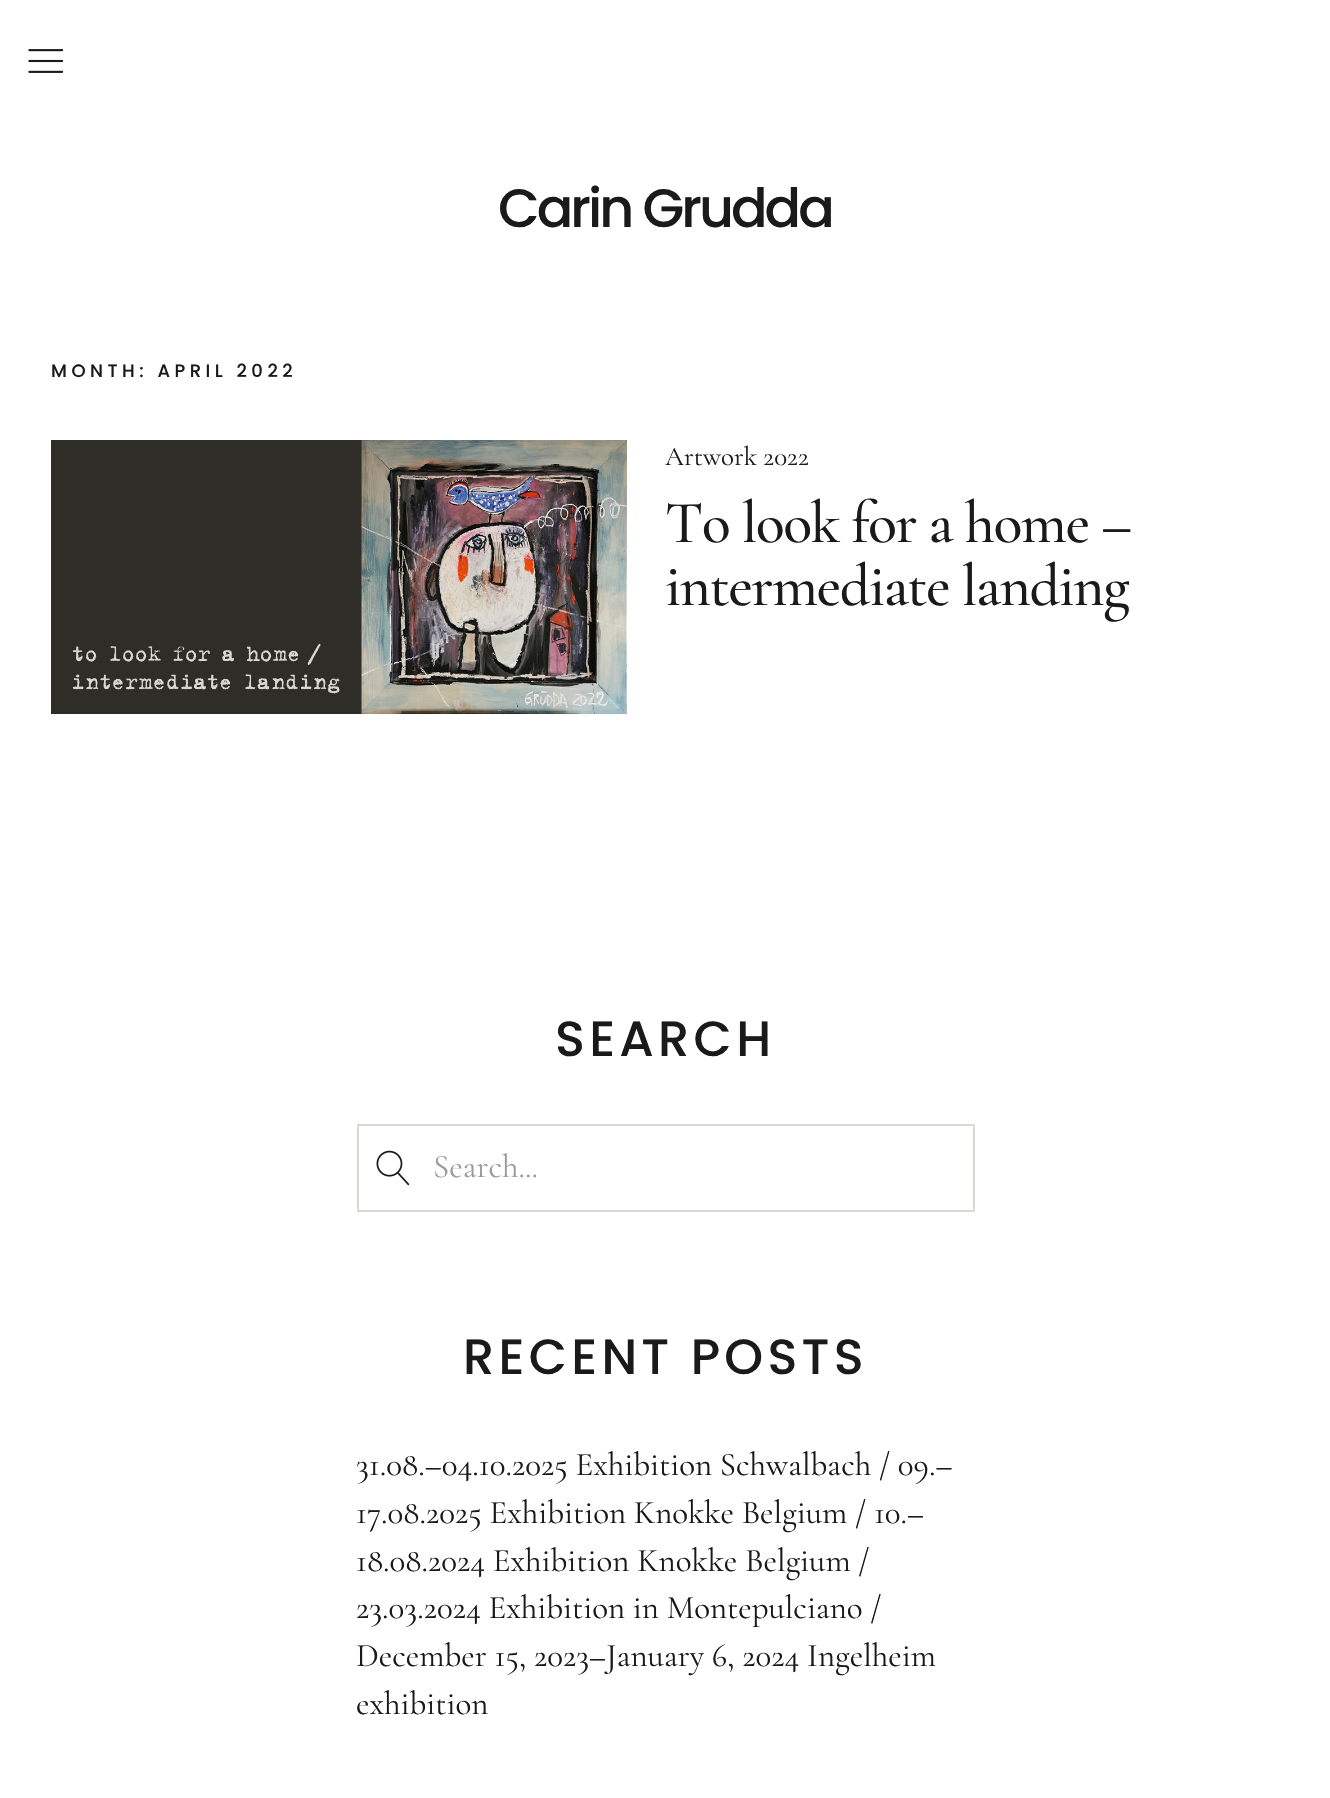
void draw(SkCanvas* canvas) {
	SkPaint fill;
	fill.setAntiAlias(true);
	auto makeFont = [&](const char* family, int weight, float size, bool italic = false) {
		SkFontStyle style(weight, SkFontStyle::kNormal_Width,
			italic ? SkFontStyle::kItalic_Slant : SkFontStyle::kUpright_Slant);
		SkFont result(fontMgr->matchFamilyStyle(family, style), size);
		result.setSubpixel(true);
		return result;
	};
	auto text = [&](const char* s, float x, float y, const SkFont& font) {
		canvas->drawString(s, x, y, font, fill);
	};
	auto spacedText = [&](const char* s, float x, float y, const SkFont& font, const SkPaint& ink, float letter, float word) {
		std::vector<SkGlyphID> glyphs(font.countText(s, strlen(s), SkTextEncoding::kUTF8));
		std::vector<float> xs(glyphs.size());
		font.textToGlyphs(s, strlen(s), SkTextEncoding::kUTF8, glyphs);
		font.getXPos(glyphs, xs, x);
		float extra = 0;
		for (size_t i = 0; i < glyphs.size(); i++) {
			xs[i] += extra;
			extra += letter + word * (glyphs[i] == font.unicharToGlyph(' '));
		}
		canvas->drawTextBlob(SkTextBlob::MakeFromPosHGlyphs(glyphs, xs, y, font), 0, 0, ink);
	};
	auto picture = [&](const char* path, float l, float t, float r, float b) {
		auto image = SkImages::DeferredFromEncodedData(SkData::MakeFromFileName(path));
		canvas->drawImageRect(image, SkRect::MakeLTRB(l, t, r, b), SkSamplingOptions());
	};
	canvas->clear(0xFFFFFFFF);
	picture("image0.png", 28, 49, 64, 73);
	picture("image1.png", 51, 440, 627, 714);
	fill.setStyle(SkPaint::kStroke_Style);
	fill.setStrokeWidth(2);
	fill.setColor(0xFFD9D9D4);
	canvas->drawRect(SkRect::MakeLTRB(358, 1125, 974, 1211), fill);
	picture("image2.png", 376, 1150, 410, 1186);
	auto font1 = makeFont("Poppins", 500, 54);
	fill.setStyle(SkPaint::kFill_Style);
	fill.setColor(0xFF1A1A1A);
	spacedText("Carin Grudda", 498, 227, font1, fill, -3, 0);
	auto font2 = makeFont("Poppins", 500, 18);
	spacedText("MONTH: APRIL 2022", 51, 377, font2, fill, 4.5f, 0);
	auto font3 = makeFont("Cormorant Garamond", 400, 27);
	text("Artwork 2022", 665, 465, font3);
	auto font4 = makeFont("Cormorant Garamond", 500, 60);
	spacedText("To look for a home –", 665, 542, font4, fill, -1.5f, 0);
	spacedText("intermediate landing", 665, 605, font4, fill, -1.5f, 0);
	auto font5 = makeFont("Poppins", 500, 49.5f);
	spacedText("SEARCH", 555, 1056, font5, fill, 4.25f, 0);
	auto font6 = makeFont("Cormorant Garamond", 400, 33);
	fill.setColor(0xFF9B9B9B);
	text("Search...", 433, 1177, font6);
	fill.setColor(0xFF1A1A1A);
	spacedText("RECENT POSTS", 463, 1374, font5, fill, 4.25f, 0);
	text("31.08.–04.10.2025 Exhibition Schwalbach / 09.–", 356, 1475, font6);
	text("17.08.2025 Exhibition Knokke Belgium / 10.–", 356, 1523, font6);
	text("18.08.2024 Exhibition Knokke Belgium /", 356, 1571, font6);
	text("23.03.2024 Exhibition in Montepulciano /", 356, 1618, font6);
	text("December 15, 2023–January 6, 2024 Ingelheim", 356, 1666, font6);
	text("exhibition", 356, 1714, font6);
}
